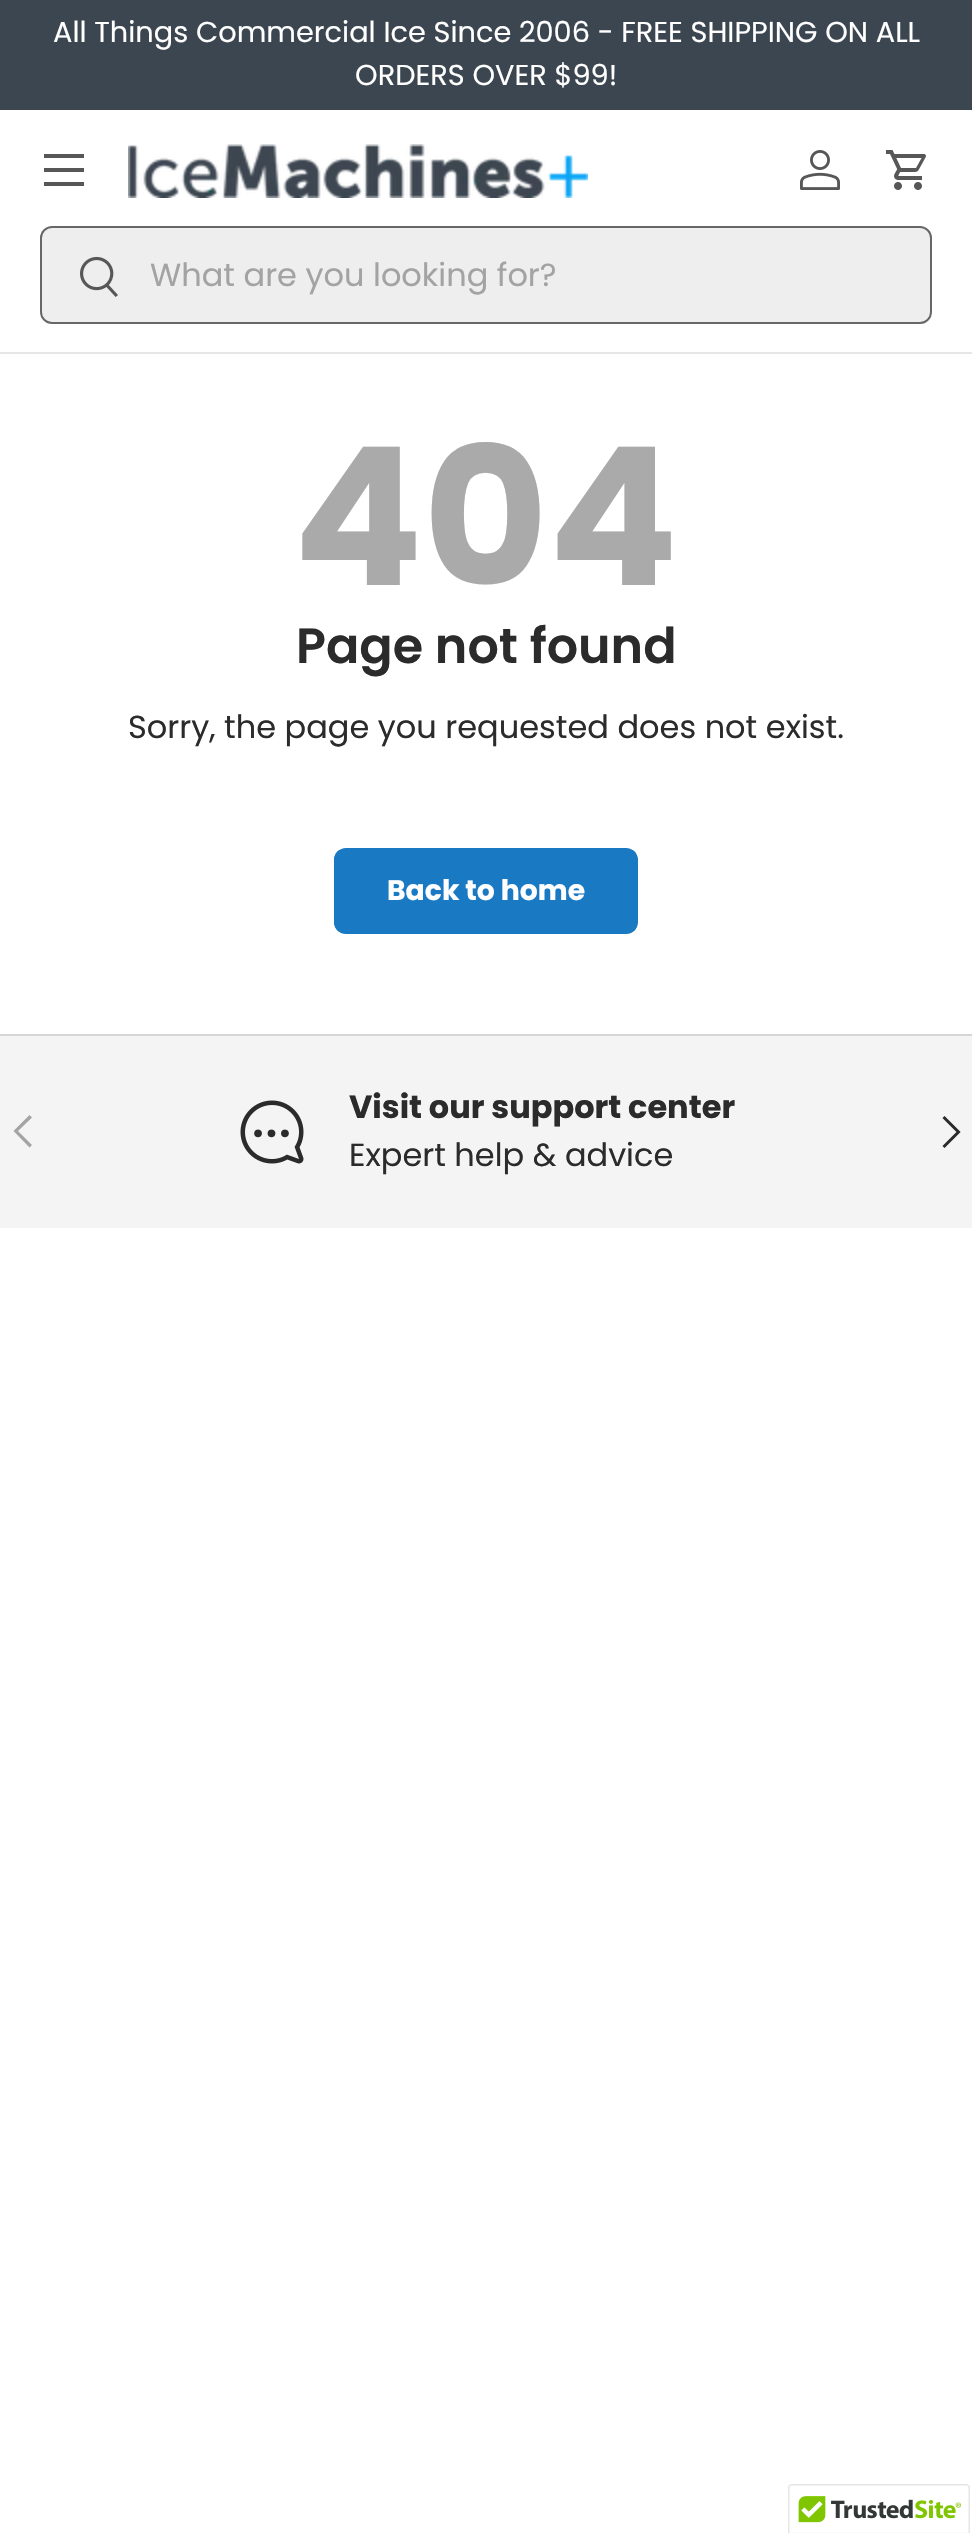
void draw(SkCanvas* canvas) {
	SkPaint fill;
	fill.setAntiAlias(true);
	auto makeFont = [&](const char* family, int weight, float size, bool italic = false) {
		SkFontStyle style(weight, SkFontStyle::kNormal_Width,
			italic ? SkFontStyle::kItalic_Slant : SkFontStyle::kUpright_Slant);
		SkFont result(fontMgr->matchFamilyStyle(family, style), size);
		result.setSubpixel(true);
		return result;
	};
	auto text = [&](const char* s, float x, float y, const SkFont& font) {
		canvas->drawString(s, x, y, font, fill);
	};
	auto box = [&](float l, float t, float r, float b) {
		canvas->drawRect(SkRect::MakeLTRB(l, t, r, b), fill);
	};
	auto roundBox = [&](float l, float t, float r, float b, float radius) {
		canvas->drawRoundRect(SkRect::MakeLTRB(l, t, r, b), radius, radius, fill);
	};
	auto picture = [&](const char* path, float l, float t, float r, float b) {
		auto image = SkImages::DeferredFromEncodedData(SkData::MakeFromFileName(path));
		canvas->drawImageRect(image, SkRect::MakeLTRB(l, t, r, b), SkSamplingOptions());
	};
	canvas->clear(0xFFFFFFFF);
	fill.setColor(0xFF3C4650);
	box(0, 0, 972, 110);
	fill.setColor(0xFFE6E6E6);
	box(0, 352, 972, 354);
	fill.setColor(0xFF575757);
	box(44, 154, 84, 158);
	box(44, 182, 84, 186);
	box(44, 168, 84, 172);
	picture("image0.png", 128, 144, 588, 198);
	picture("image1.png", 800, 150, 840, 190);
	picture("image2.png", 886, 150, 926, 190);
	fill.setColor(0xFFEEEEEE);
	roundBox(42, 228, 930, 322, 10);
	fill.setStyle(SkPaint::kStroke_Style);
	fill.setStrokeWidth(2);
	fill.setColor(0xE6575757);
	canvas->drawRoundRect(SkRect::MakeLTRB(41, 227, 931, 323), 11, 11, fill);
	picture("image3.png", 80, 256, 118, 297);
	canvas->save();
	canvas->clipPath(SkPathBuilder().moveTo(346, 848).lineTo(626, 848).cubicTo(632.5f, 848, 638, 853.5f, 638, 860).lineTo(638, 922).cubicTo(638, 928.5f, 632.5f, 934, 626, 934).lineTo(346, 934).cubicTo(339.5f, 934, 334, 928.5f, 334, 922).lineTo(334, 860).cubicTo(334, 853.5f, 339.5f, 848, 346, 848).close().detach(), true);
	fill.setStyle(SkPaint::kFill_Style);
	{
		const SkColor colors[] = {0xFF4894CF, 0xFF1979C3, 0xFF1979C3};
		const float stops[] = {0.6f, 0.6f, 1};
		const SkPoint ends[] = {{-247, 783}, {619, 999}};
		fill.setShader(SkGradientShader::MakeLinear(ends, colors, stops, 3, SkTileMode::kClamp));
		fill.setAlpha(255);
	}
	box(334, 850, 636, 932);
	canvas->restore();
	fill.setStyle(SkPaint::kStroke_Style);
	fill.setShader(nullptr);
	fill.setColor(0xFF1979C3);
	canvas->drawRoundRect(SkRect::MakeLTRB(335, 849, 637, 933), 11, 11, fill);
	fill.setStyle(SkPaint::kFill_Style);
	fill.setColor(0xFFF4F4F4);
	box(0, 1036, 972, 1228);
	fill.setColor(0xFFD6D6D6);
	box(0, 1034, 972, 1036);
	picture("image4.png", 240, 1100, 304, 1164);
	fill.setColor(0xFFA3A4A3);
	canvas->drawPath(SkPathBuilder().moveTo(13.5f, 1131).lineTo(29.5f, 1115).lineTo(32, 1117.5f).lineTo(18, 1131).lineTo(32, 1145).lineTo(29.5f, 1147.5f).close().detach(), fill);
	fill.setStyle(SkPaint::kStroke_Style);
	fill.setStrokeWidth(3);
	fill.setColor(0xFF2A2B2A);
	canvas->drawPath(SkPathBuilder().moveTo(943.5f, 1117).lineTo(958.5f, 1132).lineTo(943.5f, 1147).detach(), fill);
	picture("image5.png", 788, 2484, 970, 2533);
	auto font1 = makeFont("Poppins", 400, 28.8f);
	fill.setStyle(SkPaint::kFill_Style);
	fill.setColor(0xFFFFFFFF);
	text("All Things Commercial Ice Since 2006 - FREE SHIPPING ON ALL", 53, 42, font1);
	text("ORDERS OVER $99!", 355, 85, font1);
	auto font2 = makeFont("Poppins", 400, 32);
	fill.setColor(0xFFA3A3A3);
	text("What are you looking for?", 150, 286, font2);
	auto font3 = makeFont("Poppins", 700, 192);
	fill.setColor(0xFFAAAAAA);
	text("404", 293, 585, font3);
	auto font4 = makeFont("Poppins", 600, 49.25f);
	fill.setColor(0xFF2A2B2A);
	text("Page not found", 296, 663, font4);
	text("Sorry, the page you requested does not exist.", 128, 738, font2);
	auto font5 = makeFont("Poppins", 700, 28.25f);
	fill.setColor(0xFFFFFFFF);
	text("Back to home", 387, 900, font5);
	auto font6 = makeFont("Poppins", 700, 32);
	fill.setColor(0xFF2A2B2A);
	text("Visit our support center", 349, 1118, font6);
	text("Expert help & advice", 349, 1166, font2);
}
